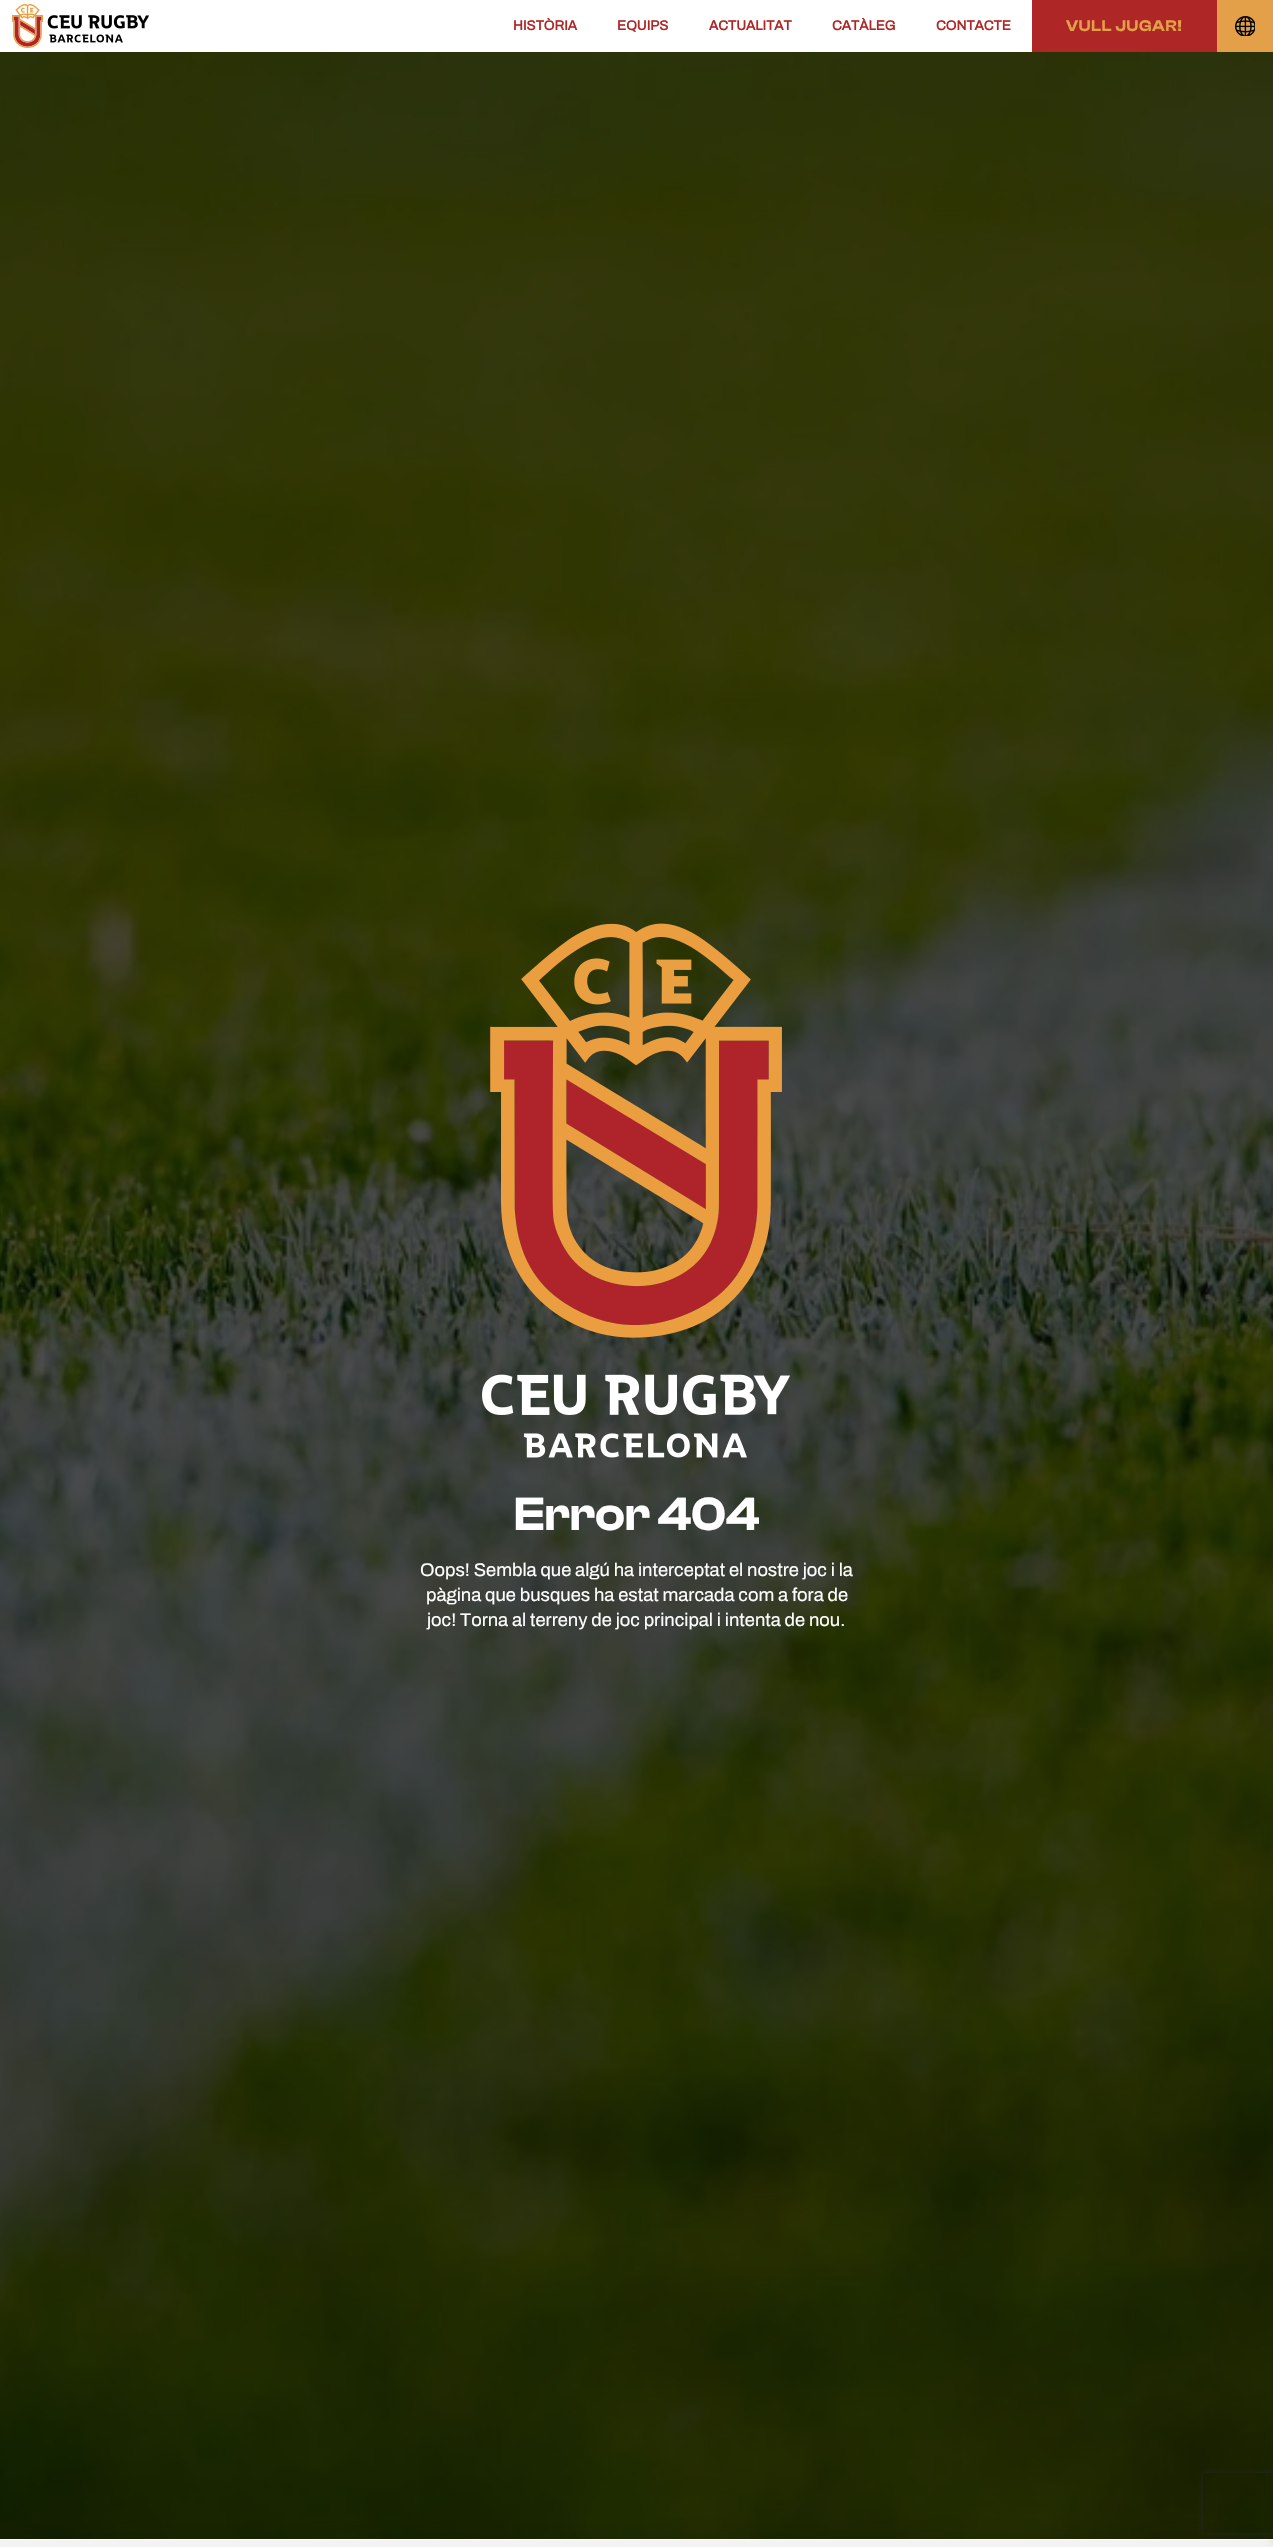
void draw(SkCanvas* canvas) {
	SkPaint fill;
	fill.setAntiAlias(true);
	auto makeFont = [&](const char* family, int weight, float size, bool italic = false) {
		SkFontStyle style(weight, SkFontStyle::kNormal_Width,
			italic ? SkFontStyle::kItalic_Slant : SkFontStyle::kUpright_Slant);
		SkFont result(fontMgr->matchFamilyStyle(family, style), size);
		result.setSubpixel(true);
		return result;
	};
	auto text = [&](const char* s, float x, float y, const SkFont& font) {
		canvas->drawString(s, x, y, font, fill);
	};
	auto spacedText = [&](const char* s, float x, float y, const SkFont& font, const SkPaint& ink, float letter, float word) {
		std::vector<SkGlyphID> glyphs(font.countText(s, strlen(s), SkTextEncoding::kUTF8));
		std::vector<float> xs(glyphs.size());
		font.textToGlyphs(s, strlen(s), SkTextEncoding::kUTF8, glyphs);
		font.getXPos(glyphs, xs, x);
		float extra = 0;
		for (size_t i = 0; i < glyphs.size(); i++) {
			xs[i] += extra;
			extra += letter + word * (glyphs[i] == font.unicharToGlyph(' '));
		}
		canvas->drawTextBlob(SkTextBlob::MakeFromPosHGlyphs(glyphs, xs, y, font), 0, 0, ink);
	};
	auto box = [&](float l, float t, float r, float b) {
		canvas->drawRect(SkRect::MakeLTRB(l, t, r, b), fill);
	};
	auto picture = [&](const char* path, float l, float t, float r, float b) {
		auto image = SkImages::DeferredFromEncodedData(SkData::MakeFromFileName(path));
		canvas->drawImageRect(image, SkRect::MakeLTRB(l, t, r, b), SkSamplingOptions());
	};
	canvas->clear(0xFFFFFFFF);
	picture("image0.png", 12, 4, 149, 48);
	fill.setColor(0xFFAF2626);
	box(1032, 0, 1217, 52);
	fill.setColor(0xFFE4A048);
	box(1217, 0, 1273, 52);
	picture("image1.png", 1235, 16, 1255, 36);
	picture("image2.png", 0, 52, 1273, 2539);
	picture("image3.png", 482, 923, 790, 1458);
	fill.setColor(0x4D000000);
	fill.setMaskFilter(SkMaskFilter::MakeBlur(kNormal_SkBlurStyle, 20));
	canvas->drawRect(SkRect::MakeLTRB(16, 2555, 1257, 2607), fill);
	fill.setMaskFilter(nullptr);
	canvas->save();
	canvas->clipPath(SkPathBuilder(SkPathFillType::kEvenOdd).moveTo(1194, 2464).lineTo(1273, 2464).lineTo(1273, 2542).lineTo(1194, 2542).close().moveTo(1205, 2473).lineTo(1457, 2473).cubicTo(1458, 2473, 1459, 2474, 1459, 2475).lineTo(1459, 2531).cubicTo(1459, 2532, 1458, 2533, 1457, 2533).lineTo(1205, 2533).cubicTo(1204, 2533, 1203, 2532, 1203, 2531).lineTo(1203, 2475).cubicTo(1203, 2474, 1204, 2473, 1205, 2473).close().detach(), true);
	fill.setColor(0xFF262626);
	fill.setMaskFilter(SkMaskFilter::MakeBlur(kNormal_SkBlurStyle, 2.5f));
	canvas->drawRoundRect(SkRect::MakeLTRB(1203, 2473, 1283, 2533), 2, 2, fill);
	fill.setMaskFilter(nullptr);
	canvas->restore();
	fill.setColor(0xFFF3F3F3);
	box(0, 2540, 1273, 2547);
	fill.setColor(0xFFFFFFFF);
	box(0, 2539, 1273, 2540);
	fill.setColor(0x1A000000);
	fill.setMaskFilter(SkMaskFilter::MakeBlur(kNormal_SkBlurStyle, 5));
	canvas->drawRect(SkRect::MakeLTRB(1273, 2424, 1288, 2546), fill);
	fill.setMaskFilter(nullptr);
	auto font1 = makeFont("Archivo", 700, 13.5f);
	fill.setColor(0xFFAF2626);
	text("HISTÒRIA", 513, 30, font1);
	text("EQUIPS", 617, 30, font1);
	text("ACTUALITAT", 709, 30, font1);
	text("CATÀLEG", 832, 30, font1);
	text("CONTACTE", 936, 30, font1);
	auto font2 = makeFont("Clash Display", 600, 16);
	fill.setColor(0xFFE4A048);
	spacedText("VULL JUGAR!", 1066, 31, font2, fill, 0.75f, 0);
	auto font3 = makeFont("Clash Display", 600, 48);
	fill.setColor(0xFFFFFFFF);
	text("Error 404", 514, 1530, font3);
	auto font4 = makeFont("Archivo", 400, 18.4f);
	text("Oops! Sembla que algú ha interceptat el nostre joc i la", 420, 1576, font4);
	text("pàgina que busques ha estat marcada com a fora de", 426, 1601, font4);
	text("joc! Torna al terreny de joc principal i intenta de nou.", 427, 1626, font4);
}
